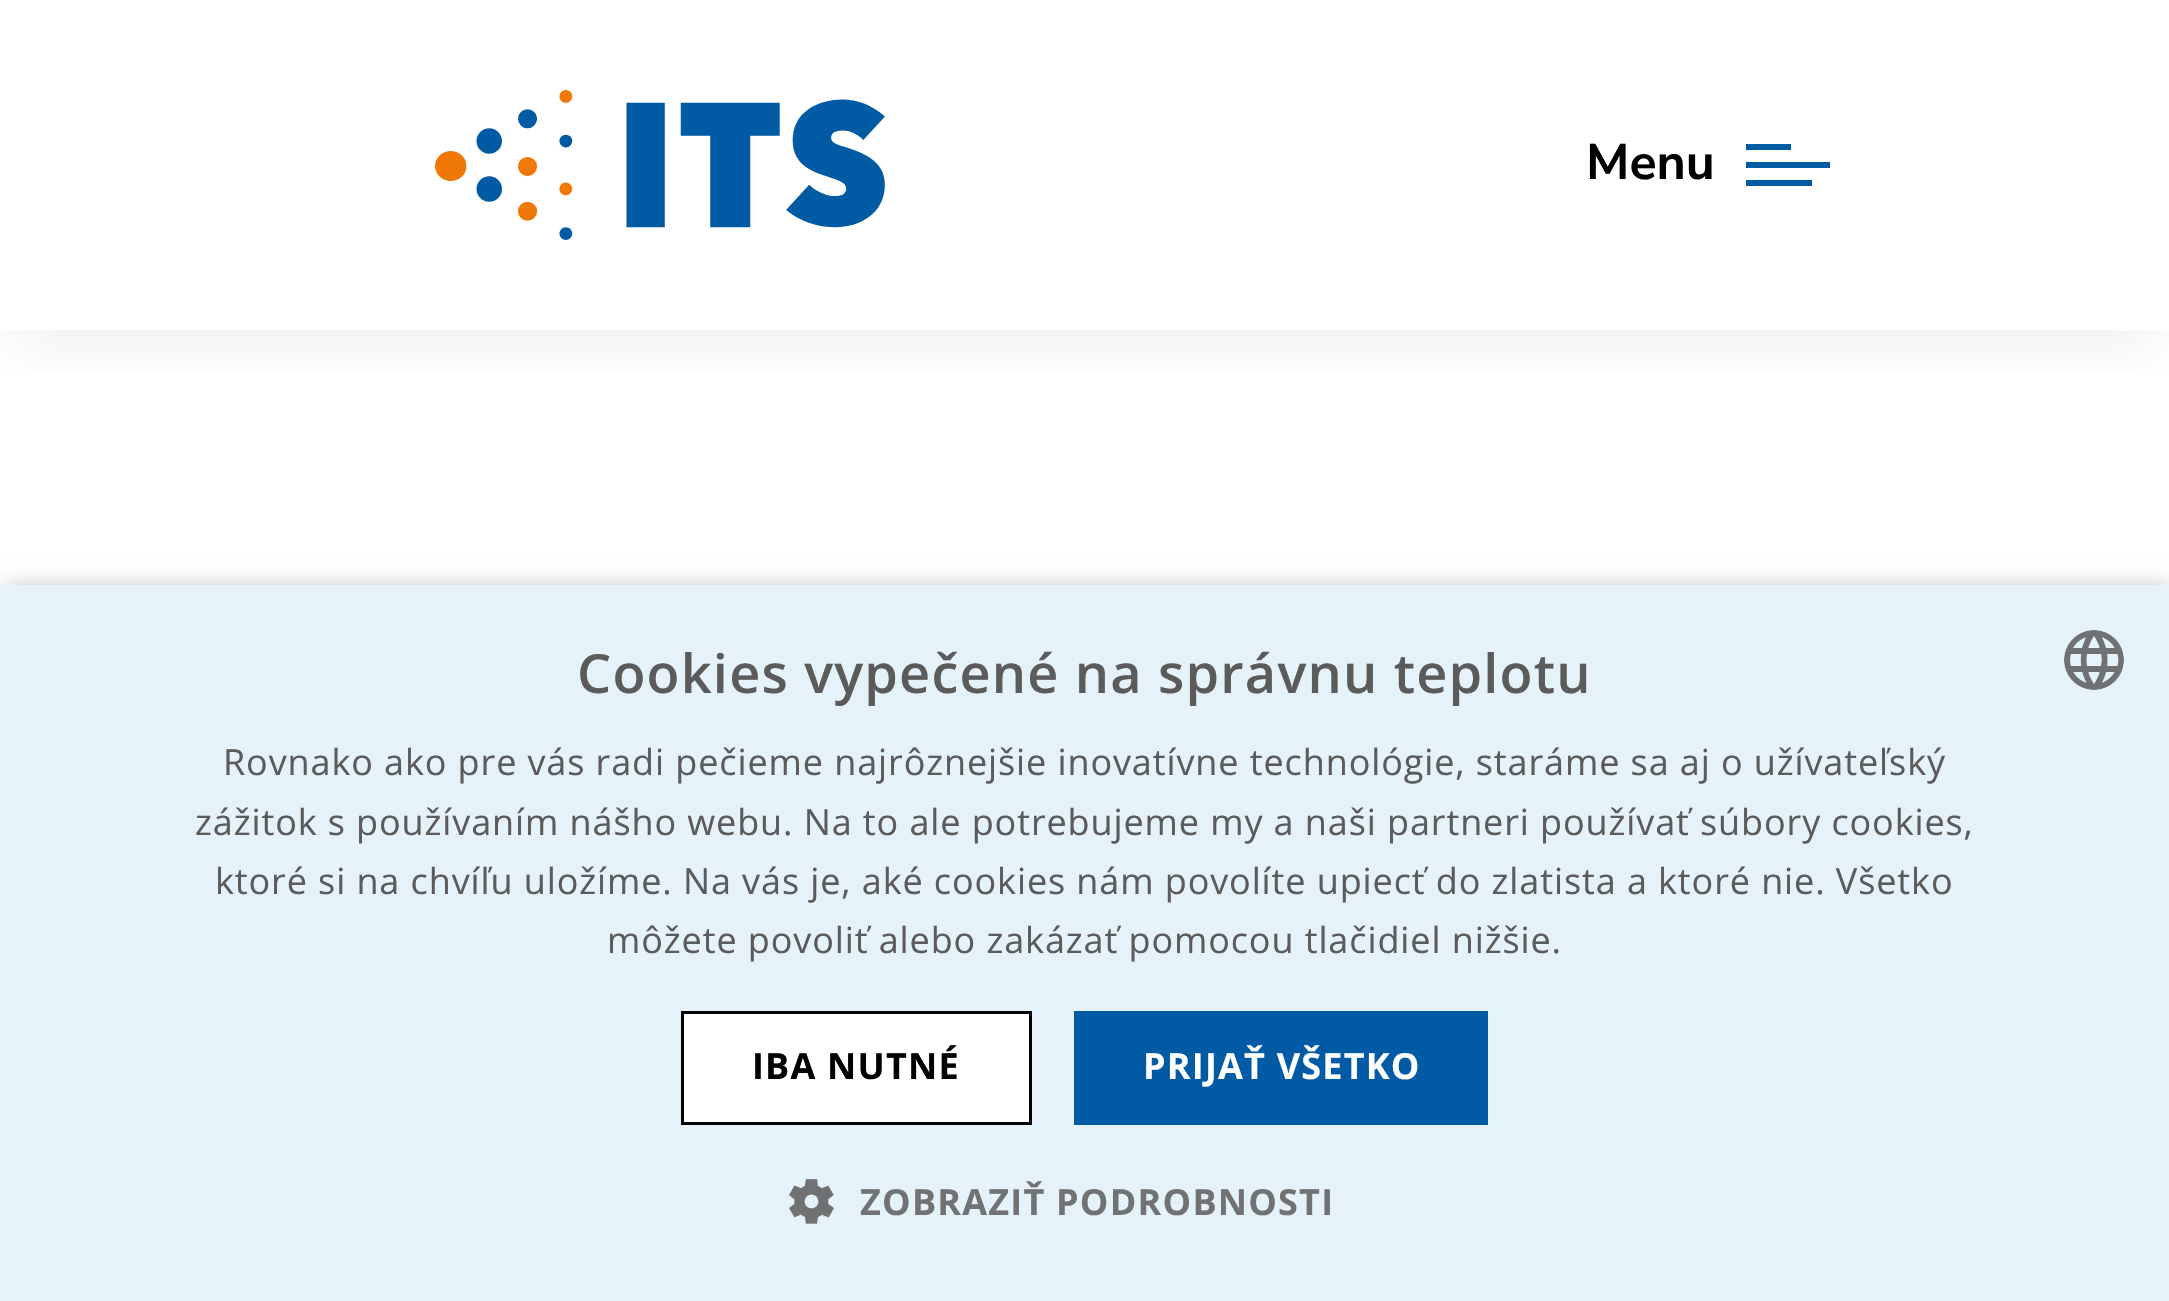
void draw(SkCanvas* canvas) {
	SkPaint fill;
	fill.setAntiAlias(true);
	auto makeFont = [&](const char* family, int weight, float size, bool italic = false) {
		SkFontStyle style(weight, SkFontStyle::kNormal_Width,
			italic ? SkFontStyle::kItalic_Slant : SkFontStyle::kUpright_Slant);
		SkFont result(fontMgr->matchFamilyStyle(family, style), size);
		result.setSubpixel(true);
		return result;
	};
	auto text = [&](const char* s, float x, float y, const SkFont& font) {
		canvas->drawString(s, x, y, font, fill);
	};
	auto spacedText = [&](const char* s, float x, float y, const SkFont& font, const SkPaint& ink, float letter, float word) {
		std::vector<SkGlyphID> glyphs(font.countText(s, strlen(s), SkTextEncoding::kUTF8));
		std::vector<float> xs(glyphs.size());
		font.textToGlyphs(s, strlen(s), SkTextEncoding::kUTF8, glyphs);
		font.getXPos(glyphs, xs, x);
		float extra = 0;
		for (size_t i = 0; i < glyphs.size(); i++) {
			xs[i] += extra;
			extra += letter + word * (glyphs[i] == font.unicharToGlyph(' '));
		}
		canvas->drawTextBlob(SkTextBlob::MakeFromPosHGlyphs(glyphs, xs, y, font), 0, 0, ink);
	};
	auto box = [&](float l, float t, float r, float b) {
		canvas->drawRect(SkRect::MakeLTRB(l, t, r, b), fill);
	};
	auto picture = [&](const char* path, float l, float t, float r, float b) {
		auto image = SkImages::DeferredFromEncodedData(SkData::MakeFromFileName(path));
		canvas->drawImageRect(image, SkRect::MakeLTRB(l, t, r, b), SkSamplingOptions());
	};
	canvas->clear(0xFFFFFFFF);
	canvas->save();
	canvas->clipRect(SkRect::MakeLTRB(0, 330, 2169, 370));
	fill.setColor(0x1A57575C);
	fill.setMaskFilter(SkMaskFilter::MakeBlur(kNormal_SkBlurStyle, 30));
	canvas->drawRect(SkRect::MakeLTRB(15, 45, 2154, 345), fill);
	fill.setMaskFilter(nullptr);
	canvas->restore();
	picture("image0.png", 435, 90, 885, 240);
	fill.setColor(0xFF005AA4);
	canvas->drawPath(SkPathBuilder().moveTo(1746, 186).lineTo(1812, 186).lineTo(1812, 180).lineTo(1746, 180).close().moveTo(1746, 168).lineTo(1830, 168).lineTo(1830, 162).lineTo(1746, 162).close().moveTo(1746, 144).lineTo(1746, 150).lineTo(1791, 150).lineTo(1791, 144).close().detach(), fill);
	fill.setColor(0x59000000);
	fill.setMaskFilter(SkMaskFilter::MakeBlur(kNormal_SkBlurStyle, 12));
	canvas->drawRect(SkRect::MakeLTRB(3, 591, 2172, 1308), fill);
	fill.setMaskFilter(nullptr);
	fill.setColor(0xFFE6F2FA);
	box(0, 585, 2169, 1301);
	picture("image1.png", 2064, 630, 2124, 690);
	fill.setColor(0xFFFFFFFF);
	canvas->drawRect(SkRect::MakeLTRB(682.5f, 1012.5f, 1030.5f, 1123.5f), fill);
	fill.setStyle(SkPaint::kStroke_Style);
	fill.setStrokeWidth(3);
	fill.setColor(0xFF000000);
	canvas->drawRect(SkRect::MakeLTRB(682.5f, 1012.5f, 1030.5f, 1123.5f), fill);
	fill.setStyle(SkPaint::kFill_Style);
	fill.setColor(0xFF005AA4);
	box(1074, 1011, 1488, 1125);
	picture("image2.png", 789, 1179, 834, 1224);
	auto font1 = makeFont("Nunito Sans", 700, 50);
	fill.setColor(0xFF000000);
	text("Menu", 1586, 179, font1);
	auto font2 = makeFont("Open Sans", 600, 54);
	fill.setColor(0xFF5B5B5B);
	spacedText("Cookies vypečené na správnu teplotu", 577, 693, font2, fill, 1.2f, 0);
	auto font3 = makeFont("Open Sans", 400, 36);
	spacedText("Rovnako ako pre vás radi pečieme najrôznejšie inovatívne technológie, staráme sa aj o užívateľský", 223, 775, font3, fill, 0.9f, 0);
	spacedText("zážitok s používaním nášho webu. Na to ale potrebujeme my a naši partneri používať súbory cookies,", 195, 835, font3, fill, 0.9f, 0);
	spacedText("ktoré si na chvíľu uložíme. Na vás je, aké cookies nám povolíte upiecť do zlatista a ktoré nie. Všetko", 215, 894, font3, fill, 0.9f, 0);
	spacedText("môžete povoliť alebo zakázať pomocou tlačidiel nižšie.", 607, 953, font3, fill, 0.9f, 0);
	auto font4 = makeFont("Open Sans", 700, 36);
	fill.setColor(0xFF000000);
	spacedText("IBA NUTNÉ", 752, 1079, font4, fill, 1.2f, 0);
	fill.setColor(0xFFFFFFFF);
	spacedText("PRIJAŤ VŠETKO", 1143, 1079, font4, fill, 1.2f, 0);
	fill.setColor(0xFF707273);
	spacedText("ZOBRAZIŤ PODROBNOSTI", 860, 1215, font4, fill, 1.2f, 0);
}
